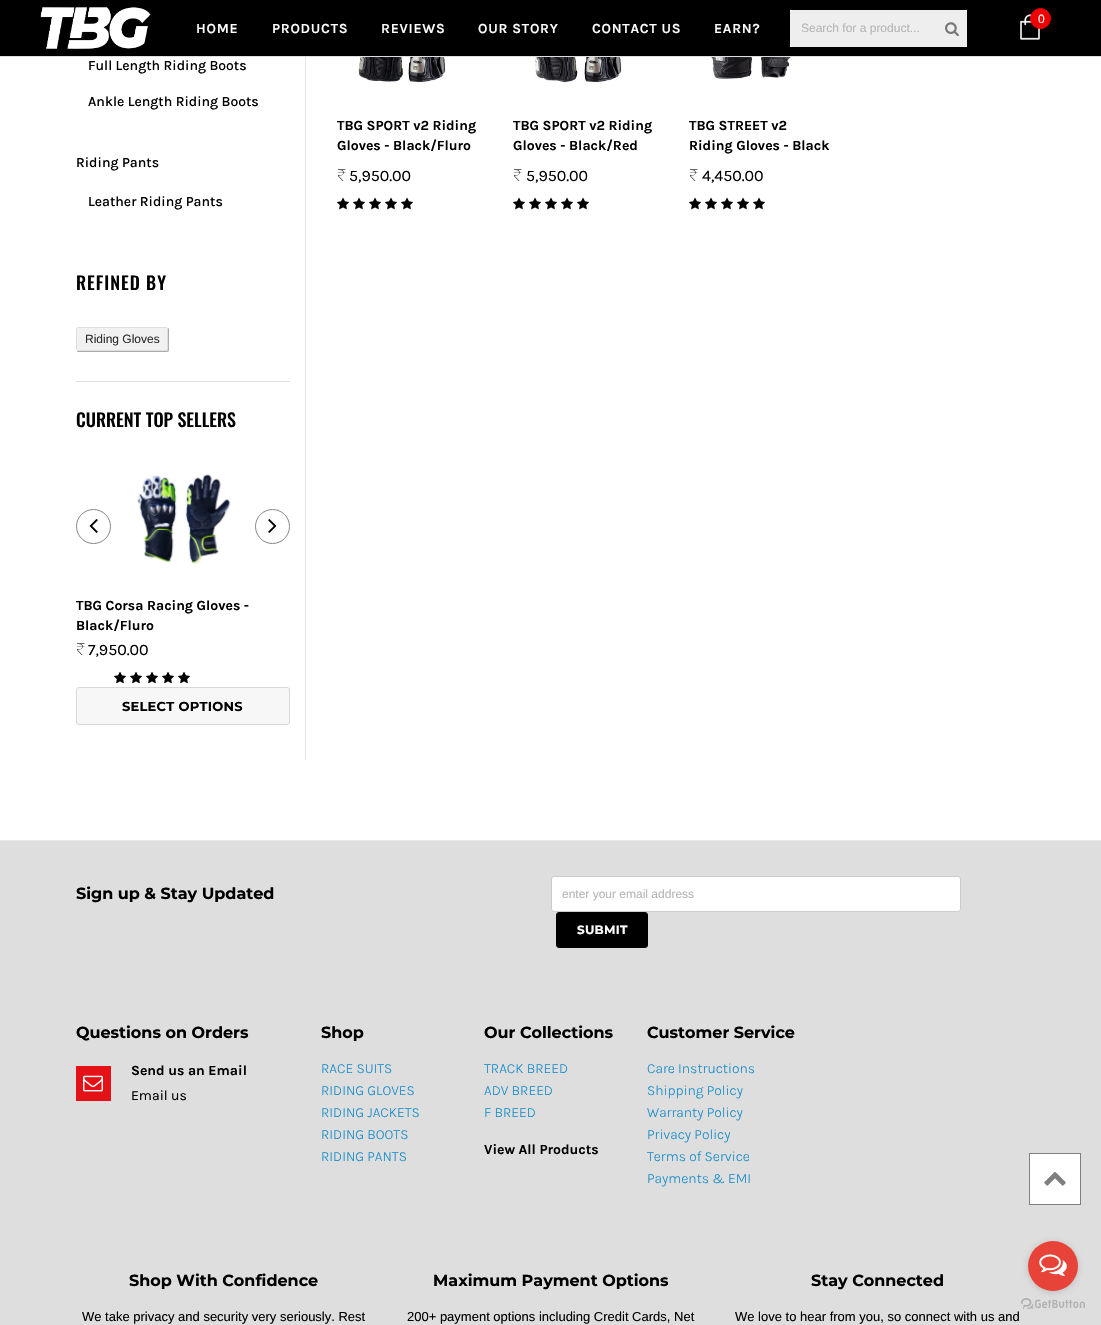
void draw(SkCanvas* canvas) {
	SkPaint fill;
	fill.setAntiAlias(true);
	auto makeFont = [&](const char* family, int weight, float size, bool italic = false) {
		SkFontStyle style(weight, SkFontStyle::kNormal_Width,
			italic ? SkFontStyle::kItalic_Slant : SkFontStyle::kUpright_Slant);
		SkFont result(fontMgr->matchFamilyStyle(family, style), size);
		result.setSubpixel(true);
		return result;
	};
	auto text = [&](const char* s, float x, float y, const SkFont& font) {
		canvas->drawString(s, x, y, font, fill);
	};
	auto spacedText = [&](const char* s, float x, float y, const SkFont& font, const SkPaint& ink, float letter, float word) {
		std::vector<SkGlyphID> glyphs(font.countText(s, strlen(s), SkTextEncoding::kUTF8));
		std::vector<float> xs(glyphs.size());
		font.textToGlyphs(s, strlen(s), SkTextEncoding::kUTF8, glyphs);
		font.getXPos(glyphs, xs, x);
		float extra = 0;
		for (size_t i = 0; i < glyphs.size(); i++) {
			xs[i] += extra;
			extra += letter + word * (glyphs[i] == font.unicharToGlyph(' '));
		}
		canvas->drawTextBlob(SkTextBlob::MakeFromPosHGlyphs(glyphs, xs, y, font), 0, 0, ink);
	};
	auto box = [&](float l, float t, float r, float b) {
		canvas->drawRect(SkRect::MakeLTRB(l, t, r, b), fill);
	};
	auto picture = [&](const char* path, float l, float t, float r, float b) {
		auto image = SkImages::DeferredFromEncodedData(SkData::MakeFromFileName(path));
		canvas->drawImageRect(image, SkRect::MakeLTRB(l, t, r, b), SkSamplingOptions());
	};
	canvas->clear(0xFFFFFFFF);
	fill.setColor(0xFF000000);
	box(0, 0, 1101, 56);
	fill.setColor(0xFFDEDEDE);
	box(0, 56, 1101, 57);
	picture("image0.png", 40, 7, 151, 49);
	picture("image1.png", 1020, 14, 1040, 40);
	fill.setColor(0xFFF00000);
	canvas->drawCircle(1040.5f, 18.5f, 10, fill);
	fill.setStyle(SkPaint::kStroke_Style);
	fill.setStrokeWidth(1);
	canvas->drawCircle(1040.5f, 18.5f, 10, fill);
	fill.setStyle(SkPaint::kFill_Style);
	fill.setColor(0xFFFFFFFF);
	box(790, 10, 967, 47);
	fill.setColor(0xFFEEEEEE);
	canvas->drawRoundRect(SkRect::MakeLTRB(790.5f, 10.5f, 966.5f, 46.5f), 2.5f, 2.5f, fill);
	fill.setStyle(SkPaint::kStroke_Style);
	canvas->drawRoundRect(SkRect::MakeLTRB(790.5f, 10.5f, 966.5f, 46.5f), 2.5f, 2.5f, fill);
	picture("image2.png", 945, 22, 959, 37);
	fill.setStyle(SkPaint::kFill_Style);
	fill.setColor(0xFFE6E6E6);
	box(305, 57, 306, 760);
	fill.setColor(0xFFABABAB);
	canvas->drawPath(SkPathBuilder().moveTo(77, 351).cubicTo(77, 352, 78, 352, 79, 352).lineTo(167, 352).cubicTo(168, 352, 169, 351, 169, 350).lineTo(169, 330).cubicTo(169, 329, 169, 328, 168, 328).lineTo(168, 342).cubicTo(168, 344, 169, 351, 166, 351).close().detach(), fill);
	fill.setColor(0xFFF1F1F1);
	canvas->drawRoundRect(SkRect::MakeLTRB(76.5f, 327.5f, 167.5f, 350.5f), 1.5f, 1.5f, fill);
	fill.setStyle(SkPaint::kStroke_Style);
	fill.setColor(0xFFDEDEDE);
	canvas->drawRoundRect(SkRect::MakeLTRB(76.5f, 327.5f, 167.5f, 350.5f), 1.5f, 1.5f, fill);
	fill.setStyle(SkPaint::kFill_Style);
	box(76, 381, 290, 382);
	fill.setStyle(SkPaint::kStroke_Style);
	fill.setColor(0xFF8A8686);
	canvas->drawCircle(93.5f, 526.5f, 17, fill);
	picture("image3.png", 89, 519, 98, 533);
	canvas->drawCircle(272.5f, 526.5f, 17, fill);
	picture("image4.png", 268, 519, 277, 533);
	picture("image5.png", 137, 474, 231, 564);
	picture("image6.png", 114, 671, 126, 684);
	picture("image6.png", 130, 671, 142, 684);
	picture("image6.png", 146, 671, 158, 684);
	picture("image6.png", 162, 671, 174, 684);
	picture("image6.png", 178, 671, 190, 684);
	fill.setStyle(SkPaint::kFill_Style);
	fill.setColor(0xFFF7F7F7);
	canvas->drawRoundRect(SkRect::MakeLTRB(76.5f, 687.5f, 289.5f, 724.5f), 2.5f, 2.5f, fill);
	fill.setStyle(SkPaint::kStroke_Style);
	fill.setColor(0xFFD8D8D8);
	canvas->drawRoundRect(SkRect::MakeLTRB(76.5f, 687.5f, 289.5f, 724.5f), 2.5f, 2.5f, fill);
	picture("image7.png", 358, 57, 466, 83);
	picture("image6.png", 337, 197, 349, 210);
	picture("image6.png", 353, 197, 365, 210);
	picture("image6.png", 369, 197, 381, 210);
	picture("image6.png", 385, 197, 397, 210);
	picture("image6.png", 401, 197, 413, 210);
	picture("image8.png", 534, 57, 642, 83);
	picture("image6.png", 513, 197, 525, 210);
	picture("image6.png", 529, 197, 541, 210);
	picture("image6.png", 545, 197, 557, 210);
	picture("image6.png", 561, 197, 573, 210);
	picture("image6.png", 577, 197, 589, 210);
	picture("image9.png", 706, 57, 822, 79);
	picture("image6.png", 689, 197, 701, 210);
	picture("image6.png", 705, 197, 717, 210);
	picture("image6.png", 721, 197, 733, 210);
	picture("image6.png", 737, 197, 749, 210);
	picture("image6.png", 753, 197, 765, 210);
	fill.setStyle(SkPaint::kFill_Style);
	fill.setColor(0xFFE6E6E6);
	box(0, 840, 1101, 841);
	fill.setColor(0xFFDEDEDE);
	box(0, 841, 1101, 1325);
	fill.setColor(0xFFFFFFFF);
	canvas->drawRoundRect(SkRect::MakeLTRB(551.5f, 876.5f, 960.5f, 911.5f), 2.5f, 2.5f, fill);
	fill.setStyle(SkPaint::kStroke_Style);
	fill.setColor(0xFFCCCCCC);
	canvas->drawRoundRect(SkRect::MakeLTRB(551.5f, 876.5f, 960.5f, 911.5f), 2.5f, 2.5f, fill);
	fill.setStyle(SkPaint::kFill_Style);
	fill.setColor(0xFF000000);
	canvas->drawRoundRect(SkRect::MakeLTRB(556.5f, 912.5f, 647.5f, 947.5f), 2.5f, 2.5f, fill);
	fill.setStyle(SkPaint::kStroke_Style);
	canvas->drawRoundRect(SkRect::MakeLTRB(556.5f, 912.5f, 647.5f, 947.5f), 2.5f, 2.5f, fill);
	fill.setStyle(SkPaint::kFill_Style);
	fill.setColor(0xFFE41217);
	box(76, 1066, 111, 1101);
	picture("image10.png", 83, 1075, 103, 1092);
	fill.setColor(0xFFFFFFFF);
	canvas->drawRect(SkRect::MakeLTRB(1029.5f, 1153.5f, 1080.5f, 1204.5f), fill);
	fill.setStyle(SkPaint::kStroke_Style);
	fill.setColor(0xFF7F7F7F);
	canvas->drawRect(SkRect::MakeLTRB(1029.5f, 1153.5f, 1080.5f, 1204.5f), fill);
	picture("image11.png", 1044, 1172, 1066, 1186);
	picture("image13.png", 1021, 1298, 1085, 1309);
	fill.setStyle(SkPaint::kFill_Style);
	fill.setColor(0x66888888);
	fill.setMaskFilter(SkMaskFilter::MakeBlur(kNormal_SkBlurStyle, 3.5f));
	canvas->drawRoundRect(SkRect::MakeLTRB(1028, 1242, 1078, 1292), 25, 25, fill);
	fill.setMaskFilter(nullptr);
	fill.setColor(0xFFE74339);
	canvas->drawCircle(1053, 1266, 25, fill);
	picture("image12.png", 1039, 1254, 1067, 1277);
	auto font1 = makeFont("Arimo", 400, 12);
	fill.setColor(0xFFFFFFFF);
	text("0", 1038, 23, font1);
	auto font2 = makeFont("Karla", 600, 14);
	spacedText("HOME", 196, 33, font2, fill, 0.75f, 0);
	spacedText("PRODUCTS", 272, 33, font2, fill, 0.75f, 0);
	spacedText("REVIEWS", 381, 33, font2, fill, 0.75f, 0);
	spacedText("OUR STORY", 478, 33, font2, fill, 0.75f, 0);
	spacedText("CONTACT US", 592, 33, font2, fill, 0.75f, 0);
	spacedText("EARN?", 714, 33, font2, fill, 0.75f, 0);
	fill.setColor(0xFFB5B5B5);
	text("Search for a product...", 801, 32, font1);
	auto font3 = makeFont("Karla", 500, 14);
	fill.setColor(0xFF000000);
	text("Full Length Riding Boots", 88, 70, font3);
	text("Ankle Length Riding Boots", 88, 106, font3);
	text("Riding Pants", 76, 167, font3);
	text("Leather Riding Pants", 88, 206, font3);
	auto font4 = makeFont("Oswald", 500, 18);
	spacedText("REFINED BY", 76, 290, font4, fill, 1, 0);
	fill.setColor(0xFF2D2D2D);
	text("Riding Gloves", 85, 343, font1);
	fill.setColor(0xFF000000);
	text("CURRENT TOP SELLERS", 76, 427, font4);
	auto font5 = makeFont("Karla", 700, 14);
	text("TBG Corsa Racing Gloves -", 76, 610, font5);
	text("Black/Fluro", 76, 630, font5);
	auto font6 = makeFont("Noto Sans", 100, 16);
	text("₹", 76, 655, font6);
	auto font7 = makeFont("Karla", 400, 16);
	text("7,950.00", 88, 655, font7);
	auto font8 = makeFont("Montserrat", 700, 13);
	spacedText("SELECT OPTIONS", 122, 711, font8, fill, 0.25f, 0);
	text("TBG SPORT v2 Riding", 337, 130, font5);
	text("Gloves - Black/Fluro", 337, 150, font5);
	text("₹", 337, 181, font6);
	text("5,950.00", 349, 181, font7);
	text("TBG SPORT v2 Riding", 513, 130, font5);
	text("Gloves - Black/Red", 513, 150, font5);
	text("₹", 513, 181, font6);
	text("5,950.00", 526, 181, font7);
	text("TBG STREET v2", 689, 130, font5);
	text("Riding Gloves - Black", 689, 150, font5);
	text("₹", 689, 181, font6);
	text("4,450.00", 702, 181, font7);
	auto font9 = makeFont("Montserrat", 700, 16);
	text("Sign up & Stay Updated", 76, 899, font9);
	fill.setColor(0xFFB5B5B5);
	text("enter your email address", 562, 898, font1);
	auto font10 = makeFont("Montserrat", 700, 12);
	fill.setColor(0xFFFFFFFF);
	spacedText("SUBMIT", 577, 934, font10, fill, 0.25f, 0);
	fill.setColor(0xFF000000);
	text("Questions on Orders", 76, 1038, font9);
	text("Send us an Email", 131, 1075, font5);
	auto font11 = makeFont("Karla", 400, 14);
	text("Email us", 131, 1100, font11);
	text("Shop", 321, 1038, font9);
	auto font12 = makeFont("Karla", 300, 14);
	fill.setColor(0xFF178DC9);
	text("RACE SUITS", 321, 1073, font12);
	text("RIDING GLOVES", 321, 1095, font12);
	text("RIDING JACKETS", 321, 1117, font12);
	text("RIDING BOOTS", 321, 1139, font12);
	text("RIDING PANTS", 321, 1161, font12);
	fill.setColor(0xFF000000);
	text("Our Collections", 484, 1038, font9);
	fill.setColor(0xFF178DC9);
	text("TRACK BREED", 484, 1073, font12);
	text("ADV BREED", 484, 1095, font12);
	text("F BREED", 484, 1117, font12);
	fill.setColor(0xFF000000);
	text("View All Products", 484, 1154, font5);
	text("Customer Service", 647, 1038, font9);
	fill.setColor(0xFF178DC9);
	text("Care Instructions", 647, 1073, font12);
	text("Shipping Policy", 647, 1095, font12);
	text("Warranty Policy", 647, 1117, font12);
	text("Privacy Policy", 647, 1139, font12);
	text("Terms of Service", 647, 1161, font12);
	text("Payments & EMI", 647, 1183, font12);
	fill.setColor(0xFF000000);
	text("Shop With Confidence", 129, 1286, font9);
	auto font13 = makeFont("Arimo", 400, 13);
	text("We take privacy and security very seriously. Rest", 82, 1321, font13);
	text("Maximum Payment Options", 433, 1286, font9);
	text("200+ payment options including Credit Cards, Net", 407, 1321, font13);
	text("Stay Connected", 811, 1286, font9);
	text("We love to hear from you, so connect with us and", 735, 1321, font13);
}
